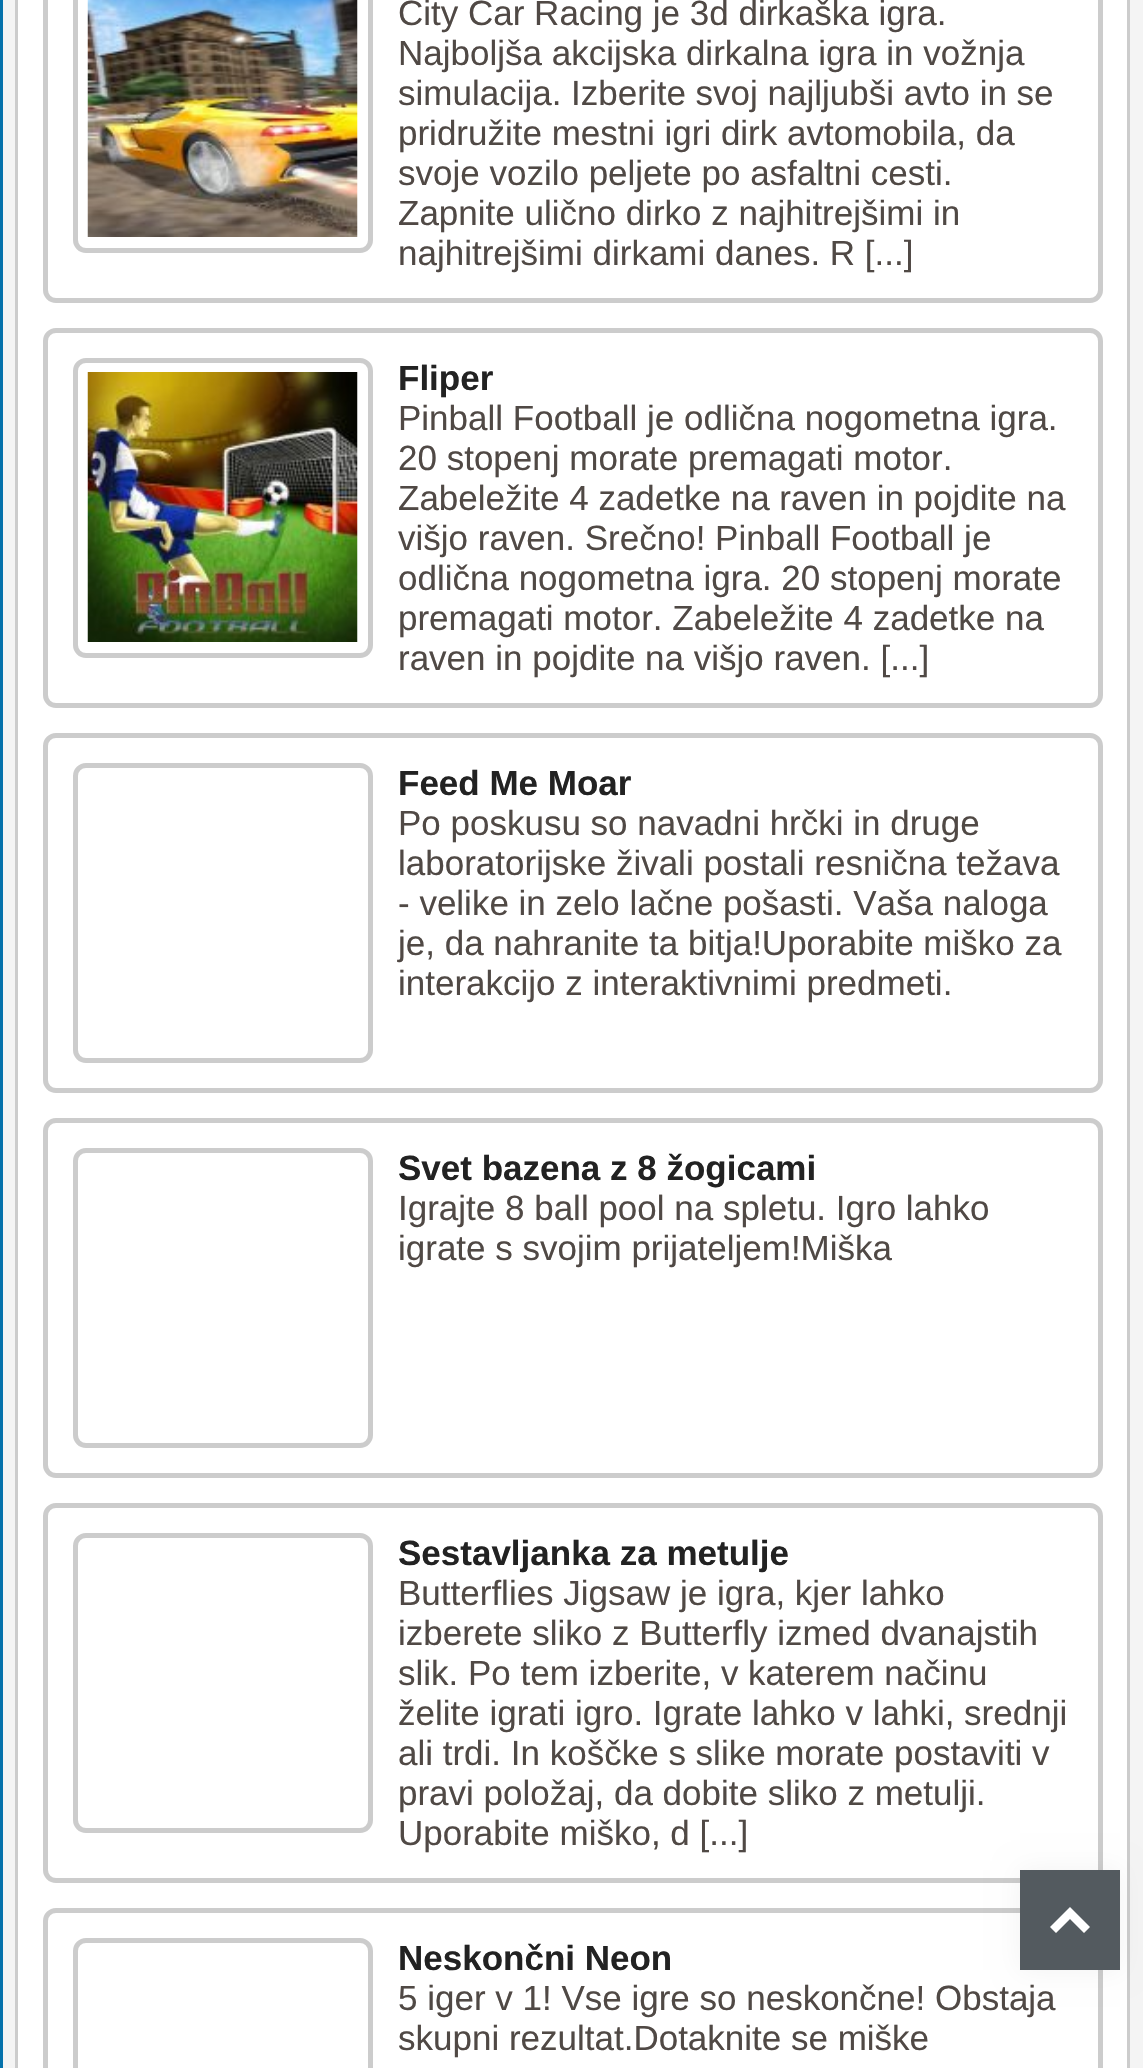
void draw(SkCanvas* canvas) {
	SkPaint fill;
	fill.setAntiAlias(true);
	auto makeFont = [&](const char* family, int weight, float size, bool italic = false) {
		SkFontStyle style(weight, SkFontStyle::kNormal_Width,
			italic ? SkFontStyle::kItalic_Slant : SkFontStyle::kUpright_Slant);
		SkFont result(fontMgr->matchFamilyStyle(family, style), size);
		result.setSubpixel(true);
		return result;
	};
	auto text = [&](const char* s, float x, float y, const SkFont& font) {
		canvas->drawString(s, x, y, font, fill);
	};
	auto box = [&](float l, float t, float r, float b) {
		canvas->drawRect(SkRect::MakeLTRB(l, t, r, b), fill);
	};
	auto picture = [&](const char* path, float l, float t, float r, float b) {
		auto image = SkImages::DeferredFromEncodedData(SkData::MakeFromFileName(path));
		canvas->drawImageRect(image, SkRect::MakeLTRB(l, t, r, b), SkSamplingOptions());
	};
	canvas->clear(0xFFF4F4F4);
	fill.setColor(0xFF0572AB);
	box(0, 0, 3, 2068);
	fill.setColor(0xFFFFFFFF);
	canvas->drawRect(SkRect::MakeLTRB(16.5f, -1.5f, 1128.5f, 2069.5f), fill);
	fill.setStyle(SkPaint::kStroke_Style);
	fill.setStrokeWidth(3);
	fill.setColor(0xFFCCCCCC);
	canvas->drawRect(SkRect::MakeLTRB(16.5f, -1.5f, 1128.5f, 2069.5f), fill);
	fill.setStrokeWidth(5);
	canvas->drawRoundRect(SkRect::MakeLTRB(45.5f, -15.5f, 1100.5f, 300.5f), 10.5f, 10.5f, fill);
	canvas->drawRoundRect(SkRect::MakeLTRB(75.5f, -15.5f, 370.5f, 250.5f), 10.5f, 10.5f, fill);
	picture("image0.png", 87, 0, 358, 237);
	canvas->drawRoundRect(SkRect::MakeLTRB(45.5f, 330.5f, 1100.5f, 705.5f), 10.5f, 10.5f, fill);
	canvas->drawRoundRect(SkRect::MakeLTRB(75.5f, 360.5f, 370.5f, 655.5f), 10.5f, 10.5f, fill);
	picture("image1.png", 87, 372, 358, 642);
	canvas->drawRoundRect(SkRect::MakeLTRB(45.5f, 735.5f, 1100.5f, 1090.5f), 10.5f, 10.5f, fill);
	canvas->drawRoundRect(SkRect::MakeLTRB(75.5f, 765.5f, 370.5f, 1060.5f), 10.5f, 10.5f, fill);
	canvas->drawRoundRect(SkRect::MakeLTRB(45.5f, 1120.5f, 1100.5f, 1475.5f), 10.5f, 10.5f, fill);
	canvas->drawRoundRect(SkRect::MakeLTRB(75.5f, 1150.5f, 370.5f, 1445.5f), 10.5f, 10.5f, fill);
	canvas->drawRoundRect(SkRect::MakeLTRB(45.5f, 1505.5f, 1100.5f, 1880.5f), 10.5f, 10.5f, fill);
	canvas->drawRoundRect(SkRect::MakeLTRB(75.5f, 1535.5f, 370.5f, 1830.5f), 10.5f, 10.5f, fill);
	canvas->drawRoundRect(SkRect::MakeLTRB(45.5f, 1910.5f, 1100.5f, 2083.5f), 10.5f, 10.5f, fill);
	canvas->drawRoundRect(SkRect::MakeLTRB(75.5f, 1940.5f, 370.5f, 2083.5f), 10.5f, 10.5f, fill);
	fill.setStyle(SkPaint::kFill_Style);
	fill.setColor(0x0D000000);
	fill.setMaskFilter(SkMaskFilter::MakeBlur(kNormal_SkBlurStyle, 12.5f));
	canvas->drawRect(SkRect::MakeLTRB(1020, 1870, 1120, 1970), fill);
	fill.setMaskFilter(nullptr);
	fill.setColor(0xFF535A5F);
	box(1020, 1870, 1120, 1970);
	fill.setColor(0xFFFFFFFF);
	canvas->drawPath(SkPathBuilder().moveTo(1070, 1907).lineTo(1090, 1927).lineTo(1084, 1933).lineTo(1070, 1919).lineTo(1056, 1933).lineTo(1050, 1927).close().detach(), fill);
	auto font1 = makeFont("Liberation Sans", 400, 35);
	fill.setColor(0xFF504945);
	text("City Car Racing je 3d dirkaška igra.", 398, 25, font1);
	text("Najboljša akcijska dirkalna igra in vožnja", 398, 65, font1);
	text("simulacija. Izberite svoj najljubši avto in se", 398, 105, font1);
	text("pridružite mestni igri dirk avtomobila, da", 398, 145, font1);
	text("svoje vozilo peljete po asfaltni cesti.", 398, 185, font1);
	text("Zapnite ulično dirko z najhitrejšimi in", 398, 225, font1);
	text("najhitrejšimi dirkami danes. R [...]", 398, 265, font1);
	auto font2 = makeFont("Liberation Sans", 700, 35);
	fill.setColor(0xFF222222);
	text("Fliper", 398, 390, font2);
	fill.setColor(0xFF504945);
	text("Pinball Football je odlična nogometna igra.", 398, 430, font1);
	text("20 stopenj morate premagati motor.", 398, 470, font1);
	text("Zabeležite 4 zadetke na raven in pojdite na", 398, 510, font1);
	text("višjo raven. Srečno! Pinball Football je", 398, 550, font1);
	text("odlična nogometna igra. 20 stopenj morate", 398, 590, font1);
	text("premagati motor. Zabeležite 4 zadetke na", 398, 630, font1);
	text("raven in pojdite na višjo raven. [...]", 398, 670, font1);
	fill.setColor(0xFF222222);
	text("Feed Me Moar", 398, 795, font2);
	fill.setColor(0xFF504945);
	text("Po poskusu so navadni hrčki in druge", 398, 835, font1);
	text("laboratorijske živali postali resnična težava", 398, 875, font1);
	text("- velike in zelo lačne pošasti. Vaša naloga", 398, 915, font1);
	text("je, da nahranite ta bitja!Uporabite miško za", 398, 955, font1);
	text("interakcijo z interaktivnimi predmeti.", 398, 995, font1);
	fill.setColor(0xFF222222);
	text("Svet bazena z 8 žogicami", 398, 1180, font2);
	fill.setColor(0xFF504945);
	text("Igrajte 8 ball pool na spletu. Igro lahko", 398, 1220, font1);
	text("igrate s svojim prijateljem!Miška", 398, 1260, font1);
	fill.setColor(0xFF222222);
	text("Sestavljanka za metulje", 398, 1565, font2);
	fill.setColor(0xFF504945);
	text("Butterflies Jigsaw je igra, kjer lahko", 398, 1605, font1);
	text("izberete sliko z Butterfly izmed dvanajstih", 398, 1645, font1);
	text("slik. Po tem izberite, v katerem načinu", 398, 1685, font1);
	text("želite igrati igro. Igrate lahko v lahki, srednji", 398, 1725, font1);
	text("ali trdi. In koščke s slike morate postaviti v", 398, 1765, font1);
	text("pravi položaj, da dobite sliko z metulji.", 398, 1805, font1);
	text("Uporabite miško, d [...]", 398, 1845, font1);
	fill.setColor(0xFF222222);
	text("Neskončni Neon", 398, 1970, font2);
	fill.setColor(0xFF504945);
	text("5 iger v 1! Vse igre so neskončne! Obstaja", 398, 2010, font1);
	text("skupni rezultat.Dotaknite se miške", 398, 2050, font1);
}
